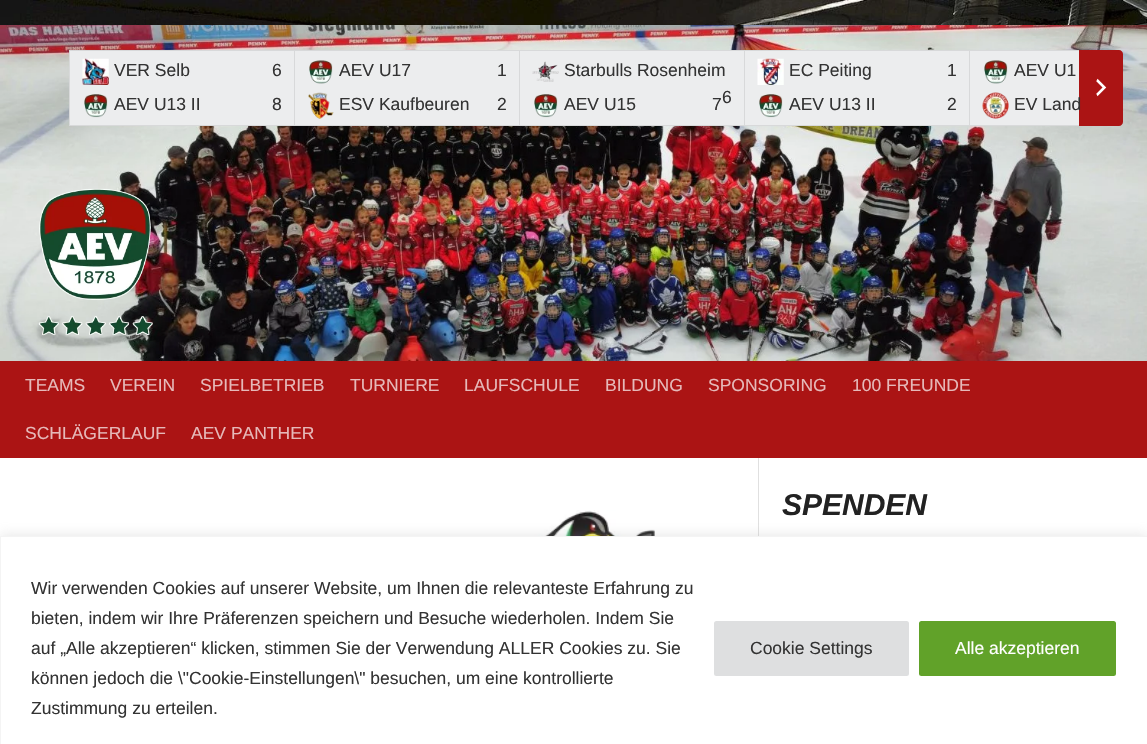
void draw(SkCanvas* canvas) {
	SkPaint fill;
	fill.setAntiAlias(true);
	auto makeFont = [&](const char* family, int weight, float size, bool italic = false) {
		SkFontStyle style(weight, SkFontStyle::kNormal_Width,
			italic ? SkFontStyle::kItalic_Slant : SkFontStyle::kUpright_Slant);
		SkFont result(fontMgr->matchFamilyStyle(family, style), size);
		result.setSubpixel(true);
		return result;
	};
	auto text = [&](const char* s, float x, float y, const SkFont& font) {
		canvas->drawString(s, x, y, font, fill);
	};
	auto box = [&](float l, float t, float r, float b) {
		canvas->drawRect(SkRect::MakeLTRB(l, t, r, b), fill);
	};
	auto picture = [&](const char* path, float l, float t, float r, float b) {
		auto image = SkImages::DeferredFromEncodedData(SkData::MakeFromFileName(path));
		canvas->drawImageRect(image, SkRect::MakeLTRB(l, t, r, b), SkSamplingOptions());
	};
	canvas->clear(0xFFFFFFFF);
	picture("image0.png", 0, 0, 1147, 25);
	picture("image1.png", 0, 25, 1147, 361);
	fill.setColor(0xFFECEDEE);
	box(70, 51, 1079, 125);
	fill.setColor(0xFFD8D9DA);
	box(69, 50, 1079, 51);
	box(69, 125, 1079, 126);
	box(69, 50, 70, 126);
	picture("image2.png", 82, 58, 109, 85);
	picture("image3.png", 84, 94, 108, 118);
	box(294, 50, 295, 126);
	picture("image4.png", 309, 60, 333, 84);
	picture("image5.png", 308, 92, 334, 119);
	box(519, 50, 520, 126);
	picture("image6.png", 532, 61, 559, 82);
	picture("image3.png", 534, 94, 558, 118);
	box(744, 50, 745, 126);
	picture("image7.png", 757, 58, 784, 85);
	picture("image3.png", 759, 94, 783, 118);
	box(969, 50, 970, 126);
	picture("image4.png", 984, 60, 1008, 84);
	picture("image8.png", 982, 92, 1009, 119);
	fill.setColor(0xFFAB1414);
	canvas->drawPath(SkPathBuilder().moveTo(1079, 50).lineTo(1119, 50).cubicTo(1121, 50, 1123, 52, 1123, 54).lineTo(1123, 122).cubicTo(1123, 124, 1121, 126, 1119, 126).lineTo(1079, 126).close().detach(), fill);
	picture("image9.png", 1096, 78, 1107, 97);
	picture("image10.png", 38, 188, 153, 336);
	box(0, 361, 1147, 458);
	fill.setColor(0xFFE0E0E0);
	canvas->drawPath(SkPathBuilder().moveTo(1, 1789).lineTo(759, 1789).lineTo(759, 458).lineTo(758, 458).lineTo(758, 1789).close().detach(), fill);
	picture("image11.png", 495, 510, 655, 536);
	fill.setColor(0x4DACABAB);
	fill.setMaskFilter(SkMaskFilter::MakeBlur(kNormal_SkBlurStyle, 6));
	canvas->drawRect(SkRect::MakeLTRB(0, 535, 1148, 744), fill);
	fill.setMaskFilter(nullptr);
	fill.setColor(0xFFFFFFFF);
	canvas->drawRect(SkRect::MakeLTRB(0.5f, 536.5f, 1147.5f, 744.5f), fill);
	fill.setStyle(SkPaint::kStroke_Style);
	fill.setStrokeWidth(1);
	fill.setColor(0xFFF4F4F4);
	canvas->drawRect(SkRect::MakeLTRB(0.5f, 536.5f, 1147.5f, 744.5f), fill);
	fill.setStyle(SkPaint::kFill_Style);
	fill.setColor(0xFFDEDFE0);
	canvas->drawRoundRect(SkRect::MakeLTRB(715.5f, 622.5f, 907.5f, 674.5f), 1, 1, fill);
	fill.setStyle(SkPaint::kStroke_Style);
	fill.setStrokeWidth(3);
	canvas->drawRoundRect(SkRect::MakeLTRB(715.5f, 622.5f, 907.5f, 674.5f), 1, 1, fill);
	fill.setStyle(SkPaint::kFill_Style);
	fill.setColor(0xFF61A229);
	canvas->drawRoundRect(SkRect::MakeLTRB(920.5f, 622.5f, 1114.5f, 674.5f), 1, 1, fill);
	fill.setStyle(SkPaint::kStroke_Style);
	canvas->drawRoundRect(SkRect::MakeLTRB(920.5f, 622.5f, 1114.5f, 674.5f), 1, 1, fill);
	auto font1 = makeFont("Liberation Sans", 400, 17.5f);
	fill.setStyle(SkPaint::kFill_Style);
	fill.setColor(0xFF333333);
	text("VER Selb", 114, 76, font1);
	text("6", 272, 76, font1);
	text("AEV U13 II", 114, 110, font1);
	text("8", 272, 110, font1);
	text("AEV U17", 339, 76, font1);
	text("1", 497, 76, font1);
	text("ESV Kaufbeuren", 339, 110, font1);
	text("2", 497, 110, font1);
	text("Starbulls Rosenheim", 564, 76, font1);
	text("6", 722, 103, font1);
	text("AEV U15", 564, 110, font1);
	text("7", 712, 110, font1);
	text("EC Peiting", 789, 76, font1);
	text("1", 947, 76, font1);
	text("AEV U13 II", 789, 110, font1);
	text("2", 947, 110, font1);
	text("AEV U1", 1014, 76, font1);
	text("EV Land", 1014, 110, font1);
	fill.setColor(0xFFE6B9B9);
	text("TEAMS", 25, 391, font1);
	text("VEREIN", 110, 391, font1);
	text("SPIELBETRIEB", 200, 391, font1);
	text("TURNIERE", 350, 391, font1);
	text("LAUFSCHULE", 464, 391, font1);
	text("BILDUNG", 605, 391, font1);
	text("SPONSORING", 708, 391, font1);
	text("100 FREUNDE", 852, 391, font1);
	text("SCHLÄGERLAUF", 25, 439, font1);
	text("AEV PANTHER", 191, 439, font1);
	auto font2 = makeFont("Liberation Sans", 700, 30, true);
	fill.setColor(0xFF222222);
	text("SPENDEN", 782, 515, font2);
	fill.setColor(0xFF333333);
	text("Wir verwenden Cookies auf unserer Website, um Ihnen die relevanteste Erfahrung zu", 31, 594, font1);
	text("bieten, indem wir Ihre Präferenzen speichern und Besuche wiederholen. Indem Sie", 31, 624, font1);
	text("auf „Alle akzeptieren“ klicken, stimmen Sie der Verwendung ALLER Cookies zu. Sie", 31, 654, font1);
	text("können jedoch die \\\"Cookie-Einstellungen\\\" besuchen, um eine kontrollierte", 31, 684, font1);
	text("Zustimmung zu erteilen.", 31, 714, font1);
	text("Cookie Settings", 750, 654, font1);
	fill.setColor(0xFFFFFFFF);
	text("Alle akzeptieren", 955, 654, font1);
}
